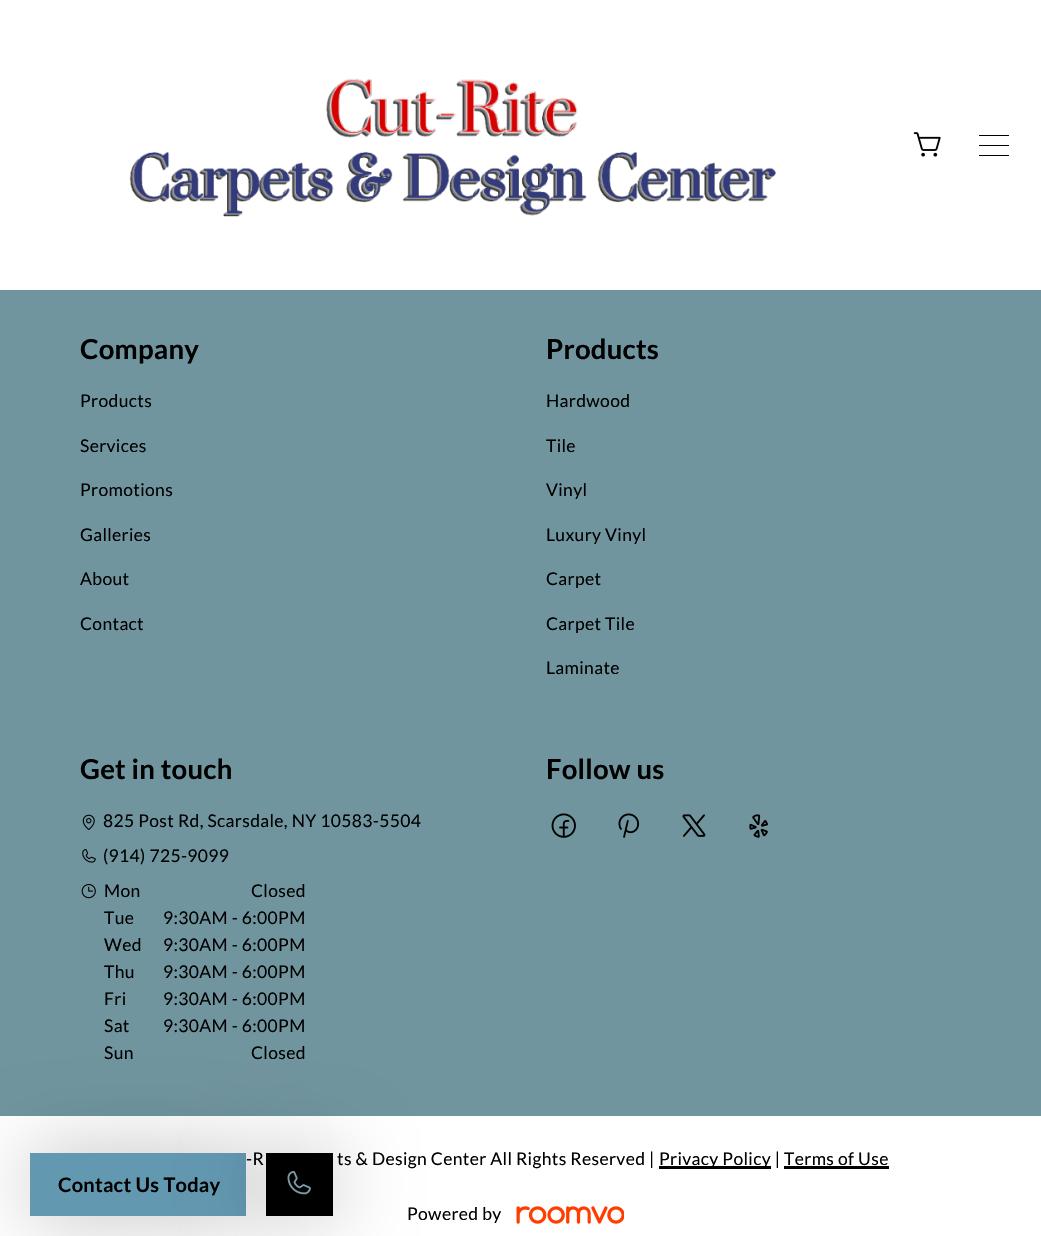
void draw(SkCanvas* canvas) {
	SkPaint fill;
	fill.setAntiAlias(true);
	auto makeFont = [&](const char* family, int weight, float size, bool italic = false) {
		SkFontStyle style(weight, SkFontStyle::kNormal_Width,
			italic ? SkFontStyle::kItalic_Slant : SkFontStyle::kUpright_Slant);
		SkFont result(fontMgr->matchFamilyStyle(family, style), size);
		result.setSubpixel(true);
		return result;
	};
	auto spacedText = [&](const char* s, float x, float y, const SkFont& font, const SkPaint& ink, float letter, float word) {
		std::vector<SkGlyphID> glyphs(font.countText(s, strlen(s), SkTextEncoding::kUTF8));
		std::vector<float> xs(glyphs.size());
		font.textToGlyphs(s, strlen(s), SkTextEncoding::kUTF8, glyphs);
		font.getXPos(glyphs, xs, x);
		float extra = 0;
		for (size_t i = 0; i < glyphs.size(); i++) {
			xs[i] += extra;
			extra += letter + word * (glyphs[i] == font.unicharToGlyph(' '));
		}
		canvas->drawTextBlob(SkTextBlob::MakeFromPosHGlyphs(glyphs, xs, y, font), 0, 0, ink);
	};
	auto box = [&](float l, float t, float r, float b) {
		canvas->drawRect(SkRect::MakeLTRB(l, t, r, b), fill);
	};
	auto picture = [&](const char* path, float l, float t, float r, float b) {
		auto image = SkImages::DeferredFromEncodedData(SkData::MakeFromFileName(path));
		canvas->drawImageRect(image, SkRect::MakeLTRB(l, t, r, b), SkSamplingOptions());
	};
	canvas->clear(0xFFFFFFFF);
	fill.setColor(0xFF70959F);
	box(0, 290, 1041, 1116);
	picture("image0.png", 82, 814, 95, 830);
	picture("image1.png", 82, 849, 96, 863);
	picture("image2.png", 81, 884, 96, 899);
	picture("image3.png", 551, 813, 576, 838);
	picture("image4.png", 618, 813, 640, 838);
	picture("image5.png", 682, 814, 706, 837);
	picture("image6.png", 749, 814, 768, 838);
	fill.setColor(0xFF000000);
	box(659, 1166, 771, 1169);
	box(784, 1166, 889, 1169);
	picture("image7.png", 516, 1206, 624, 1224);
	picture("image8.png", 129, 78, 776, 217);
	picture("image9.png", 913, 132, 941, 157);
	box(979, 145, 1009, 146);
	box(979, 135, 1009, 136);
	box(979, 155, 1009, 156);
	fill.setColor(0x40000000);
	fill.setMaskFilter(SkMaskFilter::MakeBlur(kNormal_SkBlurStyle, 40));
	canvas->drawRect(SkRect::MakeLTRB(30, 1153, 246, 1216), fill);
	fill.setMaskFilter(nullptr);
	fill.setColor(0xFF6398B1);
	box(30, 1153, 246, 1216);
	fill.setColor(0x40000000);
	fill.setMaskFilter(SkMaskFilter::MakeBlur(kNormal_SkBlurStyle, 40));
	canvas->drawRect(SkRect::MakeLTRB(266, 1153, 333, 1216), fill);
	fill.setMaskFilter(nullptr);
	fill.setColor(0xFF000000);
	box(266, 1153, 333, 1216);
	picture("image10.png", 287, 1171, 311, 1195);
	auto font1 = makeFont("Lato", 700, 27.5f);
	spacedText("Company", 80, 359, font1, fill, 0.25f, 0);
	auto font2 = makeFont("Lato", 400, 17.5f);
	spacedText("Products", 80, 407, font2, fill, 0.35f, 0);
	spacedText("Services", 80, 452, font2, fill, 0.35f, 0);
	spacedText("Promotions", 80, 496, font2, fill, 0.35f, 0);
	spacedText("Galleries", 80, 541, font2, fill, 0.35f, 0);
	spacedText("About", 80, 585, font2, fill, 0.35f, 0);
	spacedText("Contact", 80, 630, font2, fill, 0.35f, 0);
	spacedText("Products", 546, 359, font1, fill, 0.25f, 0);
	spacedText("Hardwood", 546, 407, font2, fill, 0.35f, 0);
	spacedText("Tile", 546, 452, font2, fill, 0.35f, 0);
	spacedText("Vinyl", 546, 496, font2, fill, 0.35f, 0);
	spacedText("Luxury Vinyl", 546, 541, font2, fill, 0.35f, 0);
	spacedText("Carpet", 546, 585, font2, fill, 0.35f, 0);
	spacedText("Carpet Tile", 546, 630, font2, fill, 0.35f, 0);
	spacedText("Laminate", 546, 674, font2, fill, 0.35f, 0);
	spacedText("Get in touch", 80, 779, font1, fill, 0.25f, 0);
	spacedText("825 Post Rd, Scarsdale, NY 10583-5504", 103, 827, font2, fill, 0.35f, 0);
	spacedText("(914) 725-9099", 103, 862, font2, fill, 0.35f, 0);
	spacedText("Mon", 104, 897, font2, fill, 0.35f, 0);
	spacedText("Closed", 251, 897, font2, fill, 0.35f, 0);
	spacedText("Tue", 104, 924, font2, fill, 0.35f, 0);
	spacedText("9:30AM - 6:00PM", 163, 924, font2, fill, 0.35f, 0);
	spacedText("Wed", 104, 951, font2, fill, 0.35f, 0);
	spacedText("9:30AM - 6:00PM", 163, 951, font2, fill, 0.35f, 0);
	spacedText("Thu", 104, 978, font2, fill, 0.35f, 0);
	spacedText("9:30AM - 6:00PM", 163, 978, font2, fill, 0.35f, 0);
	spacedText("Fri", 104, 1005, font2, fill, 0.35f, 0);
	spacedText("9:30AM - 6:00PM", 163, 1005, font2, fill, 0.35f, 0);
	spacedText("Sat", 104, 1032, font2, fill, 0.35f, 0);
	spacedText("9:30AM - 6:00PM", 163, 1032, font2, fill, 0.35f, 0);
	spacedText("Sun", 104, 1059, font2, fill, 0.35f, 0);
	spacedText("Closed", 251, 1059, font2, fill, 0.35f, 0);
	spacedText("Follow us", 546, 779, font1, fill, 0.25f, 0);
	spacedText("-R", 246, 1165, font2, fill, 0.35f, 0);
	spacedText("ts & Design Center All Rights Reserved |", 337, 1165, font2, fill, 0.35f, 0);
	spacedText("Privacy Policy | Terms of Use", 659, 1165, font2, fill, 0.35f, 0);
	spacedText("Powered by", 407, 1220, font2, fill, 0.35f, 0);
	auto font3 = makeFont("Lato", 700, 20);
	spacedText("Contact Us Today", 58, 1192, font3, fill, 0.25f, 0);
}
